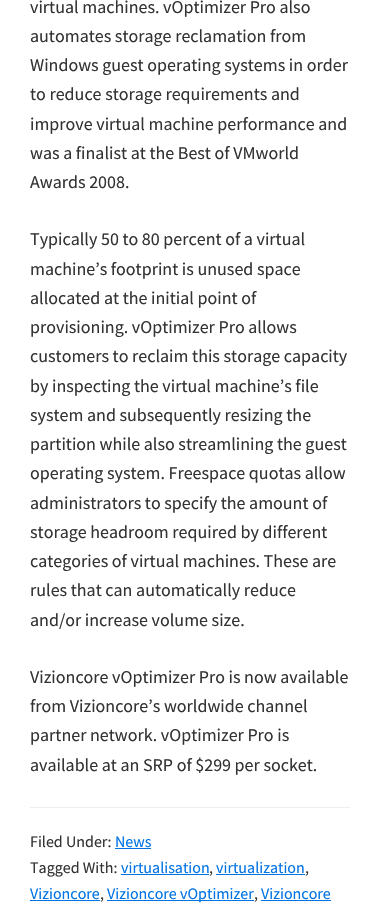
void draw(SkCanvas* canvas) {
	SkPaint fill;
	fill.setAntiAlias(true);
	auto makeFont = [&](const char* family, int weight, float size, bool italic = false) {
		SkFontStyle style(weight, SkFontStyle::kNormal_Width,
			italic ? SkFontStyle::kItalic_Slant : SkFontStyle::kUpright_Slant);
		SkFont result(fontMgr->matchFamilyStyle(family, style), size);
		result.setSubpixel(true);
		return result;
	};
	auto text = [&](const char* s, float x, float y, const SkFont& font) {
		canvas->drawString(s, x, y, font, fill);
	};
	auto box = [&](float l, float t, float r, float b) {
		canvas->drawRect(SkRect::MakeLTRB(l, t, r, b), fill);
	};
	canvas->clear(0xFFFFFFFF);
	fill.setColor(0xFFEEEEEE);
	box(30, 807, 350, 808);
	fill.setColor(0xFF0073E5);
	box(115, 848, 151, 849);
	box(121, 874, 209, 875);
	box(216, 874, 305, 875);
	box(30, 900, 100, 901);
	box(107, 900, 254, 901);
	box(261, 900, 331, 901);
	auto font1 = makeFont("Source Sans Pro", 400, 18);
	fill.setColor(0xFF333333);
	text("virtual machines. vOptimizer Pro also", 30, 13, font1);
	text("automates storage reclamation from", 30, 42, font1);
	text("Windows guest operating systems in order", 30, 71, font1);
	text("to reduce storage requirements and", 30, 100, font1);
	text("improve virtual machine performance and", 30, 130, font1);
	text("was a finalist at the Best of VMworld", 30, 159, font1);
	text("Awards 2008.", 30, 188, font1);
	text("Typically 50 to 80 percent of a virtual", 30, 245, font1);
	text("machine’s footprint is unused space", 30, 275, font1);
	text("allocated at the initial point of", 30, 304, font1);
	text("provisioning. vOptimizer Pro allows", 30, 333, font1);
	text("customers to reclaim this storage capacity", 30, 362, font1);
	text("by inspecting the virtual machine’s file", 30, 392, font1);
	text("system and subsequently resizing the", 30, 421, font1);
	text("partition while also streamlining the guest", 30, 450, font1);
	text("operating system. Freespace quotas allow", 30, 479, font1);
	text("administrators to specify the amount of", 30, 509, font1);
	text("storage headroom required by different", 30, 538, font1);
	text("categories of virtual machines. These are", 30, 567, font1);
	text("rules that can automatically reduce", 30, 596, font1);
	text("and/or increase volume size.", 30, 626, font1);
	text("Vizioncore vOptimizer Pro is now available", 30, 683, font1);
	text("from Vizioncore’s worldwide channel", 30, 712, font1);
	text("partner network. vOptimizer Pro is", 30, 741, font1);
	text("available at an SRP of $299 per socket.", 30, 771, font1);
	auto font2 = makeFont("Source Sans Pro", 400, 16);
	text("Filed Under:", 30, 847, font2);
	fill.setColor(0xFF0073E5);
	text("News", 115, 847, font2);
	fill.setColor(0xFF333333);
	text("Tagged With:", 30, 873, font2);
	fill.setColor(0xFF0073E5);
	text("virtualisation", 121, 873, font2);
	fill.setColor(0xFF333333);
	text(",", 209, 873, font2);
	fill.setColor(0xFF0073E5);
	text("virtualization", 216, 873, font2);
	fill.setColor(0xFF333333);
	text(",", 305, 873, font2);
	fill.setColor(0xFF0073E5);
	text("Vizioncore", 30, 899, font2);
	fill.setColor(0xFF333333);
	text(",", 100, 899, font2);
	fill.setColor(0xFF0073E5);
	text("Vizioncore vOptimizer", 107, 899, font2);
	fill.setColor(0xFF333333);
	text(",", 254, 899, font2);
	fill.setColor(0xFF0073E5);
	text("Vizioncore", 261, 899, font2);
}
